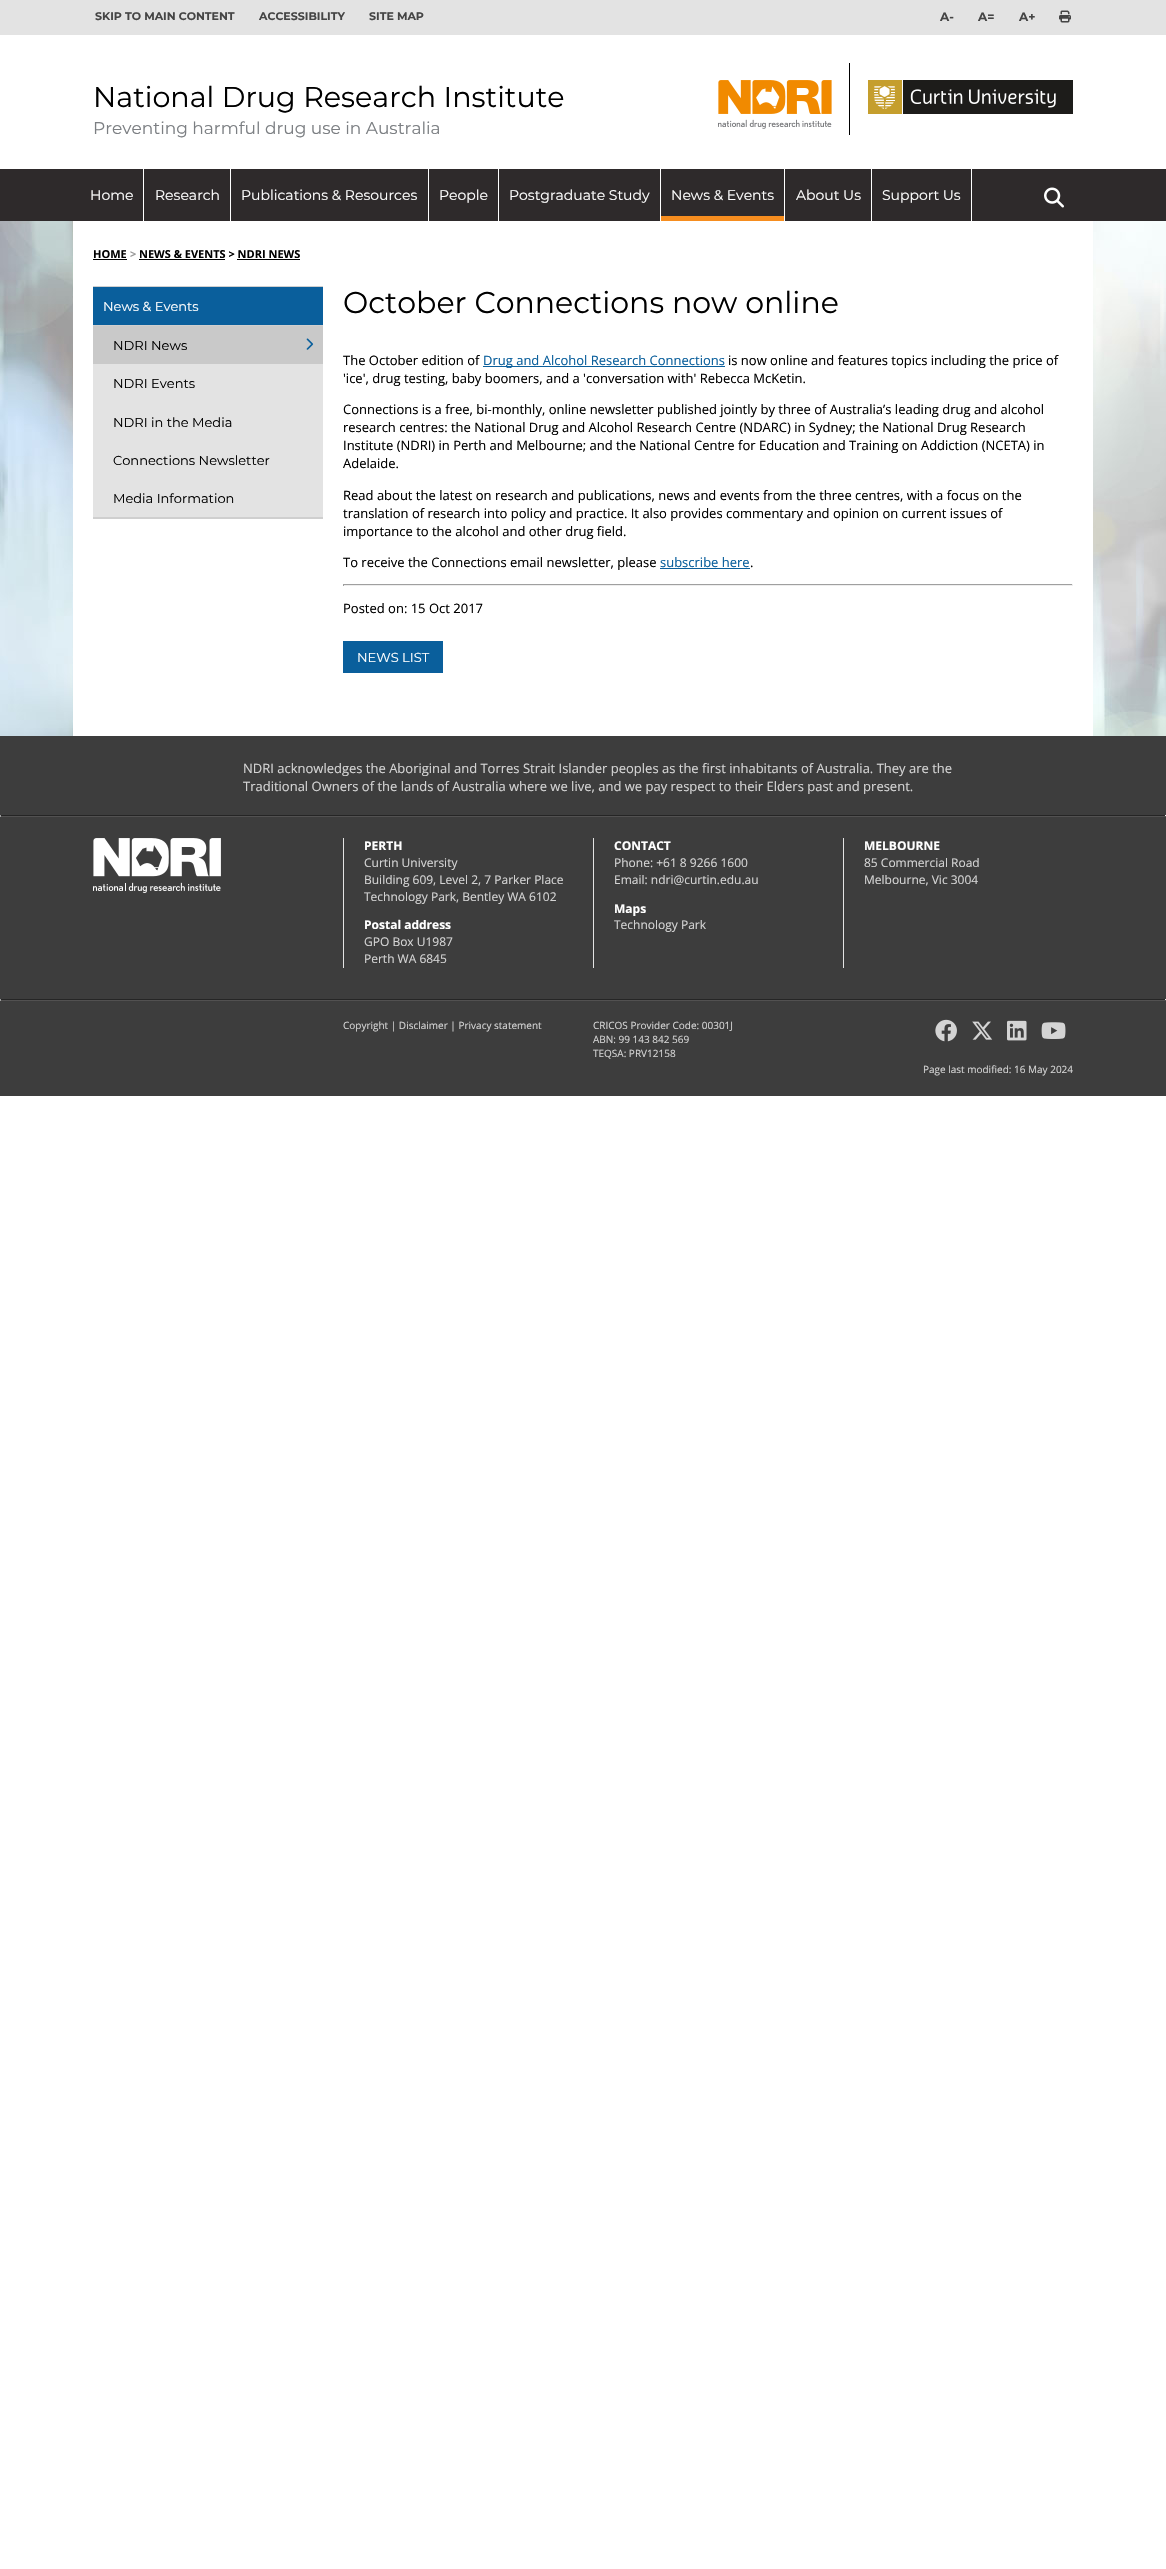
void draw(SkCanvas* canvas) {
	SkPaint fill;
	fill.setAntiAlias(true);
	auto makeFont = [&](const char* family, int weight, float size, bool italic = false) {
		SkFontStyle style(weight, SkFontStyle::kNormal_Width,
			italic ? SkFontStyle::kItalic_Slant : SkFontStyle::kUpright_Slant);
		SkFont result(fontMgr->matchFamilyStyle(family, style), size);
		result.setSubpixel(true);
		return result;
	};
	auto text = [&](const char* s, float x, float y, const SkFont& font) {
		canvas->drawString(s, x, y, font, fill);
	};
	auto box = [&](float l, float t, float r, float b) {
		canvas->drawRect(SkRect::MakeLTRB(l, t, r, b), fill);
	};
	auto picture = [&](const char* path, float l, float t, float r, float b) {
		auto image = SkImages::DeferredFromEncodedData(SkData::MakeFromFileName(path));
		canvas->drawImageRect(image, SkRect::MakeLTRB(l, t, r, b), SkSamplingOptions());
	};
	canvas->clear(0xFFFFFFFF);
	fill.setColor(0xFFE3E3E3);
	box(0, 0, 1166, 35);
	picture("image0.png", 1059, 10, 1071, 23);
	fill.setColor(0xFF000000);
	box(849, 63, 850, 135);
	picture("image1.png", 718, 80, 832, 129);
	picture("image2.png", 868, 80, 1073, 114);
	fill.setColor(0xFF2E2A2B);
	box(0, 169, 1166, 221);
	fill.setColor(0xFFFFFFFF);
	box(143, 169, 144, 221);
	box(230, 169, 231, 221);
	box(428, 169, 429, 221);
	box(498, 169, 499, 221);
	box(660, 169, 661, 221);
	box(784, 169, 785, 221);
	fill.setColor(0xFFF68D1F);
	box(661, 216, 784, 221);
	fill.setColor(0xFFFFFFFF);
	box(871, 169, 872, 221);
	box(971, 169, 972, 221);
	picture("image3.png", 1044, 187, 1064, 208);
	picture("image4.png", 0, 221, 1166, 736);
	box(73, 221, 1093, 736);
	fill.setColor(0xFF000000);
	box(93, 259, 127, 260);
	box(139, 259, 225, 260);
	box(237, 259, 300, 260);
	fill.setColor(0xFFE3E3E3);
	box(93, 364, 323, 517);
	fill.setColor(0xFFCFCFCF);
	box(93, 286, 323, 287);
	box(93, 517, 323, 519);
	fill.setColor(0xFF0A5F9C);
	box(93, 287, 323, 325);
	fill.setColor(0xFFCFCFCF);
	box(93, 325, 323, 326);
	fill.setColor(0xFFC9C9C9);
	box(93, 326, 323, 364);
	picture("image5.png", 306, 338, 314, 350);
	fill.setColor(0xFF0A5F9C);
	box(483, 366, 725, 367);
	box(660, 568, 750, 569);
	fill.setColor(0xFF9F9F9F);
	box(343, 584, 1073, 585);
	fill.setColor(0xFFEEEEEE);
	box(1072, 584, 1073, 586);
	box(343, 585, 1073, 586);
	fill.setColor(0xFF9F9F9F);
	box(343, 584, 344, 586);
	fill.setColor(0xFF0A5F9C);
	box(343, 641, 443, 673);
	fill.setColor(0xFF3D3D3D);
	box(0, 736, 1166, 1096);
	fill.setColor(0xFF252525);
	box(0, 815, 1166, 816);
	fill.setColor(0xFFEEEEEE);
	box(1165, 815, 1166, 817);
	fill.setColor(0xFF525151);
	box(0, 816, 1166, 817);
	fill.setColor(0xFF9F9F9F);
	box(0, 815, 1, 817);
	picture("image6.png", 93, 838, 221, 893);
	fill.setColor(0xFFE3E3E3);
	box(343, 838, 344, 968);
	box(593, 838, 594, 968);
	box(843, 838, 844, 968);
	fill.setColor(0xFF252525);
	box(0, 999, 1166, 1000);
	fill.setColor(0xFFEEEEEE);
	box(1165, 999, 1166, 1001);
	fill.setColor(0xFF525151);
	box(0, 1000, 1166, 1001);
	fill.setColor(0xFF9F9F9F);
	box(0, 999, 1, 1001);
	picture("image7.png", 935, 1019, 957, 1042);
	picture("image8.png", 972, 1021, 993, 1040);
	picture("image9.png", 1007, 1020, 1027, 1041);
	picture("image10.png", 1041, 1022, 1066, 1039);
	auto font1 = makeFont("Montserrat", 700, 11);
	fill.setColor(0xFF454545);
	text("SKIP TO MAIN CONTENT", 95, 20, font1);
	text("ACCESSIBILITY", 259, 20, font1);
	text("SITE MAP", 369, 20, font1);
	auto font2 = makeFont("Montserrat", 700, 12);
	text("A-", 940, 21, font2);
	text("A=", 978, 21, font2);
	text("A+", 1019, 21, font2);
	auto font3 = makeFont("Montserrat", 400, 28.6f);
	fill.setColor(0xFF000000);
	text("National Drug Research Institute", 93, 107, font3);
	auto font4 = makeFont("Montserrat", 400, 17);
	fill.setColor(0xFF7C7F83);
	text("Preventing harmful drug use in Australia", 93, 134, font4);
	auto font5 = makeFont("Montserrat", 400, 14);
	fill.setColor(0xFFFFFFFF);
	text("Home", 90, 200, font5);
	text("Research", 155, 200, font5);
	text("Publications & Resources", 241, 200, font5);
	text("People", 439, 200, font5);
	text("Postgraduate Study", 509, 200, font5);
	text("News & Events", 671, 200, font5);
	text("About Us", 796, 200, font5);
	text("Support Us", 882, 200, font5);
	auto font6 = makeFont("Open Sans", 700, 11);
	fill.setColor(0xFF000000);
	text("HOME", 93, 258, font6);
	fill.setColor(0xFF999999);
	text(">", 130, 258, font6);
	fill.setColor(0xFF000000);
	text("NEWS & EVENTS > NDRI NEWS", 139, 258, font6);
	auto font7 = makeFont("Montserrat", 400, 13);
	fill.setColor(0xFFFFFFFF);
	text("News & Events", 103, 311, font7);
	fill.setColor(0xFF000000);
	text("NDRI News", 113, 350, font7);
	text("NDRI Events", 113, 388, font7);
	text("NDRI in the Media", 113, 427, font7);
	text("Connections Newsletter", 113, 465, font7);
	text("Media Information", 113, 503, font7);
	auto font8 = makeFont("Montserrat", 400, 30);
	text("October Connections now online", 343, 313, font8);
	auto font9 = makeFont("Open Sans", 400, 13);
	text("The October edition of", 343, 365, font9);
	fill.setColor(0xFF0A5F9C);
	text("Drug and Alcohol Research Connections", 483, 365, font9);
	fill.setColor(0xFF000000);
	text("is now online and features topics including the price of", 728, 365, font9);
	text("'ice', drug testing, baby boomers, and a 'conversation with' Rebecca McKetin.", 343, 383, font9);
	text("Connections is a free, bi-monthly, online newsletter published jointly by three of Australia’s leading drug and alcohol", 343, 414, font9);
	text("research centres: the National Drug and Alcohol Research Centre (NDARC) in Sydney; the National Drug Research", 343, 432, font9);
	text("Institute (NDRI) in Perth and Melbourne; and the National Centre for Education and Training on Addiction (NCETA) in", 343, 450, font9);
	text("Adelaide.", 343, 468, font9);
	text("Read about the latest on research and publications, news and events from the three centres, with a focus on the", 343, 500, font9);
	text("translation of research into policy and practice. It also provides commentary and opinion on current issues of", 343, 518, font9);
	text("importance to the alcohol and other drug field.", 343, 536, font9);
	text("To receive the Connections email newsletter, please", 343, 567, font9);
	fill.setColor(0xFF0A5F9C);
	text("subscribe here", 660, 567, font9);
	fill.setColor(0xFF000000);
	text(".", 750, 567, font9);
	text("Posted on: 15 Oct 2017", 343, 613, font9);
	fill.setColor(0xFFFFFFFF);
	text("NEWS LIST", 357, 662, font7);
	fill.setColor(0xFFD4D4D4);
	text("NDRI acknowledges the Aboriginal and Torres Strait Islander peoples as the first inhabitants of Australia. They are the", 243, 773, font9);
	text("Traditional Owners of the lands of Australia where we live, and we pay respect to their Elders past and present.", 243, 791, font9);
	auto font10 = makeFont("Open Sans", 700, 12);
	fill.setColor(0xFFFFFFFF);
	text("PERTH", 364, 850, font10);
	auto font11 = makeFont("Open Sans", 400, 12);
	fill.setColor(0xFFD4D4D4);
	text("Curtin University", 364, 867, font11);
	text("Building 609, Level 2, 7 Parker Place", 364, 884, font11);
	text("Technology Park, Bentley WA 6102", 364, 901, font11);
	fill.setColor(0xFFFFFFFF);
	text("Postal address", 364, 929, font10);
	fill.setColor(0xFFD4D4D4);
	text("GPO Box U1987", 364, 946, font11);
	text("Perth WA 6845", 364, 963, font11);
	fill.setColor(0xFFFFFFFF);
	text("CONTACT", 614, 850, font10);
	fill.setColor(0xFFD4D4D4);
	text("Phone: +61 8 9266 1600", 614, 867, font11);
	text("Email: ndri@curtin.edu.au", 614, 884, font11);
	fill.setColor(0xFFFFFFFF);
	text("Maps", 614, 913, font10);
	fill.setColor(0xFFD4D4D4);
	text("Technology Park", 614, 929, font11);
	fill.setColor(0xFFFFFFFF);
	text("MELBOURNE", 864, 850, font10);
	fill.setColor(0xFFD4D4D4);
	text("85 Commercial Road", 864, 867, font11);
	text("Melbourne, Vic 3004", 864, 884, font11);
	auto font12 = makeFont("Open Sans", 400, 10);
	text("Copyright | Disclaimer | Privacy statement", 343, 1029, font12);
	text("CRICOS Provider Code: 00301J", 593, 1029, font12);
	text("ABN: 99 143 842 569", 593, 1043, font12);
	text("TEQSA: PRV12158", 593, 1057, font12);
	text("Page last modified: 16 May 2024", 923, 1073, font12);
}
